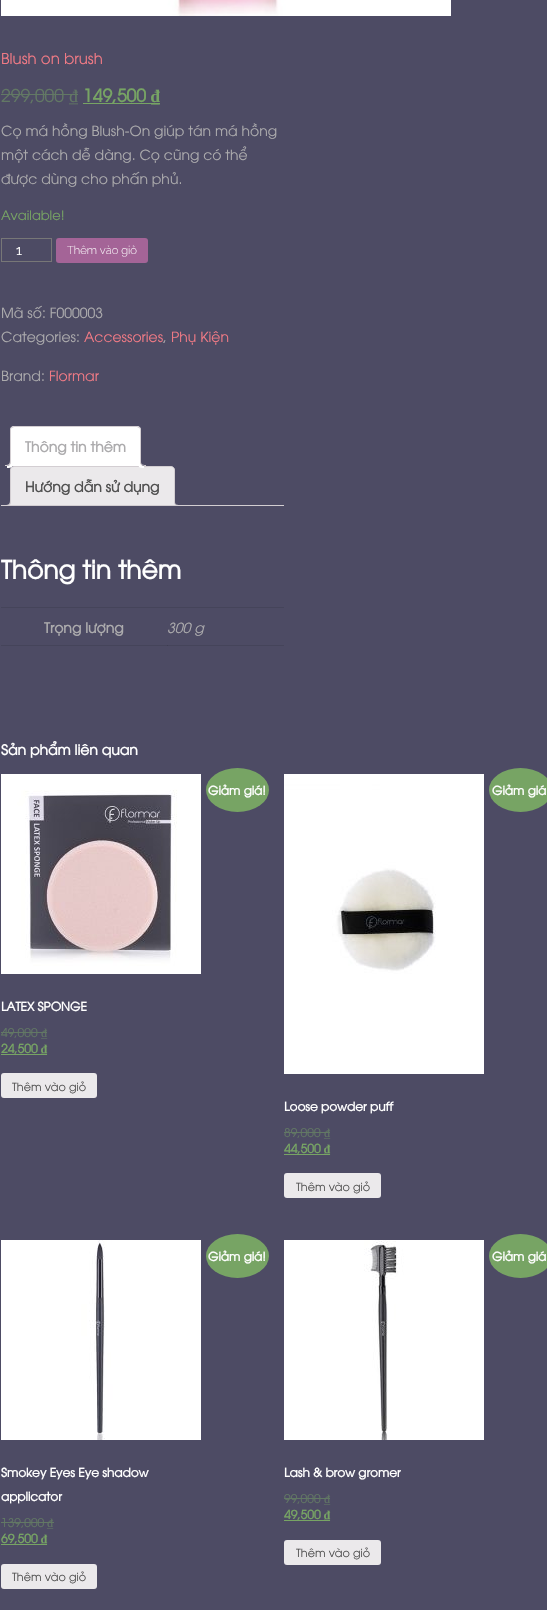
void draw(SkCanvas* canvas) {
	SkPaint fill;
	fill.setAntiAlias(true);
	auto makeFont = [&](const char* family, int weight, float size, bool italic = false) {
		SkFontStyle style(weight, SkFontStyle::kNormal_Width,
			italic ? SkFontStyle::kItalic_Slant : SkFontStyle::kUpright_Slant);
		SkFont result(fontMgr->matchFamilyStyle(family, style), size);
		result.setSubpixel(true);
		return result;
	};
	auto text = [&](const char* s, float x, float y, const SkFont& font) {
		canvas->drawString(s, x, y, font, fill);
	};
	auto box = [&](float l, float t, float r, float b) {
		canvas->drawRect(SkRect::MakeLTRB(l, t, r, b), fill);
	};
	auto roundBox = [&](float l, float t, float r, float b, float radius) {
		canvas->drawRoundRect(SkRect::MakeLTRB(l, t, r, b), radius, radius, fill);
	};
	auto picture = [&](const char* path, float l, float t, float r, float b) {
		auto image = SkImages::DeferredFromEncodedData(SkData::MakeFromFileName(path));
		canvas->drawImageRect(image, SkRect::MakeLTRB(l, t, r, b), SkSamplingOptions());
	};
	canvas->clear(0xFF4D4B64);
	fill.setColor(0xFF45445A);
	box(1, 645, 284, 646);
	picture("image0.png", 1, 0, 451, 16);
	fill.setColor(0xFF627864);
	box(1, 94, 69, 95);
	box(69, 94, 78, 95);
	fill.setColor(0xFF77A464);
	box(83, 103, 160, 104);
	fill.setStyle(SkPaint::kStroke_Style);
	fill.setStrokeWidth(1);
	fill.setColor(0xFF777777);
	canvas->drawRect(SkRect::MakeLTRB(1.5f, 238.5f, 51.5f, 261.5f), fill);
	fill.setStyle(SkPaint::kFill_Style);
	fill.setColor(0xFFA46497);
	roundBox(56, 238, 148, 263, 3);
	fill.setColor(0xFFFFFFFF);
	canvas->drawPath(SkPathBuilder().moveTo(14, 426).lineTo(137, 426).cubicTo(139, 426, 141, 428, 141, 430).lineTo(141, 466).lineTo(10, 466).lineTo(10, 430).cubicTo(10, 428, 12, 426, 14, 426).close().detach(), fill);
	fill.setColor(0xFFD3CED2);
	canvas->drawPath(SkPathBuilder().moveTo(14, 426).lineTo(11, 427).lineTo(12, 428).lineTo(14, 427).lineTo(137, 427).lineTo(139, 428).lineTo(140, 427).lineTo(137, 426).close().detach(), fill);
	canvas->drawPath(SkPathBuilder().moveTo(141, 466).lineTo(141, 430).cubicTo(141, 429, 140.5f, 428, 140, 427).lineTo(139, 428).cubicTo(140, 428, 140, 429, 140, 430).lineTo(140, 465).close().detach(), fill);
	fill.setColor(0xFFFFFFFF);
	canvas->drawPath(SkPathBuilder().moveTo(141, 466).lineTo(140, 465).lineTo(11, 465).lineTo(10, 466).close().detach(), fill);
	fill.setColor(0xFFD3CED2);
	canvas->drawPath(SkPathBuilder().moveTo(10, 466).lineTo(11, 465).lineTo(11, 430).cubicTo(11, 429, 11, 428, 12, 428).lineTo(11, 427).cubicTo(10.5f, 428, 10, 429, 10, 430).close().detach(), fill);
	fill.setColor(0xFFEBE9EB);
	canvas->drawPath(SkPathBuilder().moveTo(14, 466.5f).lineTo(171, 466.5f).cubicTo(173, 466.5f, 174.5f, 468, 174.5f, 470).lineTo(174.5f, 505.5f).lineTo(10.5f, 505.5f).lineTo(10.5f, 470).cubicTo(10.5f, 468, 12, 466.5f, 14, 466.5f).close().detach(), fill);
	fill.setStyle(SkPaint::kStroke_Style);
	fill.setColor(0xFFD3CED2);
	canvas->drawPath(SkPathBuilder().moveTo(14, 466.5f).lineTo(171, 466.5f).cubicTo(173, 466.5f, 174.5f, 468, 174.5f, 470).lineTo(174.5f, 505.5f).lineTo(10.5f, 505.5f).lineTo(10.5f, 470).cubicTo(10.5f, 468, 12, 466.5f, 14, 466.5f).close().detach(), fill);
	fill.setStyle(SkPaint::kFill_Style);
	fill.setColor(0xFFFFFFFF);
	canvas->drawPath(SkPathBuilder().moveTo(7, 466).lineTo(7, 468).cubicTo(12, 468, 13, 467, 13, 462).lineTo(11, 462).cubicTo(11, 464, 9, 466, 7, 466).close().detach(), fill);
	fill.setColor(0xFFD3CED2);
	canvas->drawPath(SkPathBuilder(SkPathFillType::kEvenOdd).moveTo(5, 460).lineTo(11, 460).cubicTo(11, 465, 10, 466, 5, 466).close().moveTo(5, 460).lineTo(10, 460).cubicTo(10, 464, 9, 465, 5, 465).close().detach(), fill);
	fill.setColor(0xFFFFFFFF);
	canvas->drawPath(SkPathBuilder().moveTo(138, 462).cubicTo(138, 467, 139, 468, 144, 468).lineTo(144, 466).cubicTo(142, 466, 140, 464, 140, 462).close().detach(), fill);
	fill.setColor(0xFFD3CED2);
	canvas->drawPath(SkPathBuilder(SkPathFillType::kEvenOdd).moveTo(140, 460).lineTo(146, 460).lineTo(146, 466).cubicTo(143.5f, 466, 140, 465.5f, 140, 462).close().moveTo(141, 460).lineTo(146, 460).lineTo(146, 465).cubicTo(144, 465, 141, 465, 141, 462).close().detach(), fill);
	canvas->save();
	canvas->clipRect(SkRect::MakeLTRB(1, 426, 284, 506));
	fill.setColor(0xFFEBE9EB);
	canvas->drawPath(SkPathBuilder().moveTo(7, 506).lineTo(7, 508).cubicTo(12, 508, 13, 507, 13, 502).lineTo(11, 502).cubicTo(11, 504, 9, 506, 7, 506).close().detach(), fill);
	canvas->restore();
	fill.setColor(0xFFD3CED2);
	canvas->drawPath(SkPathBuilder(SkPathFillType::kEvenOdd).moveTo(5, 500).lineTo(11, 500).cubicTo(11, 505, 10, 506, 5, 506).close().moveTo(5, 500).lineTo(10, 500).cubicTo(10, 504, 9, 505, 5, 505).close().detach(), fill);
	canvas->save();
	canvas->clipRect(SkRect::MakeLTRB(1, 426, 284, 506));
	fill.setColor(0xFFEBE9EB);
	canvas->drawPath(SkPathBuilder().moveTo(172, 502).cubicTo(172, 507, 173, 508, 178, 508).lineTo(178, 506).cubicTo(176, 506, 174, 504, 174, 502).close().detach(), fill);
	canvas->restore();
	fill.setColor(0xFFD3CED2);
	canvas->drawPath(SkPathBuilder(SkPathFillType::kEvenOdd).moveTo(174, 500).lineTo(180, 500).lineTo(180, 506).cubicTo(177.5f, 506, 174, 505.5f, 174, 502).close().moveTo(175, 500).lineTo(180, 500).lineTo(180, 505).cubicTo(178, 505, 175, 505, 175, 502).close().detach(), fill);
	box(1, 505, 284, 506);
	fill.setColor(0xFF45445A);
	box(1, 607, 284, 608);
	fill.setColor(0xFF3E3D51);
	box(167, 645, 168, 646);
	picture("image1.png", 1, 774, 201, 974);
	fill.setColor(0xFF77A464);
	canvas->drawOval(SkRect::MakeLTRB(206, 768, 269, 812), fill);
	fill.setColor(0xFF627864);
	box(1, 1032, 41, 1033);
	box(41, 1032, 47, 1033);
	fill.setColor(0xFF77A464);
	box(1, 1054, 47, 1055);
	fill.setColor(0xFFEBE9EB);
	roundBox(1, 1073, 97, 1098, 3);
	picture("image2.png", 284, 774, 484, 1074);
	fill.setColor(0xFF77A464);
	canvas->drawOval(SkRect::MakeLTRB(489, 768, 552, 812), fill);
	fill.setColor(0xFF627864);
	box(284, 1132, 324, 1133);
	box(324, 1132, 330, 1133);
	fill.setColor(0xFF77A464);
	box(284, 1154, 330, 1155);
	fill.setColor(0xFFEBE9EB);
	roundBox(284, 1173, 381, 1198, 3);
	picture("image3.png", 1, 1240, 201, 1440);
	fill.setColor(0xFF77A464);
	canvas->drawOval(SkRect::MakeLTRB(206, 1234, 269, 1278), fill);
	fill.setColor(0xFF627864);
	box(1, 1522, 47, 1523);
	box(47, 1522, 54, 1523);
	fill.setColor(0xFF77A464);
	box(1, 1544, 47, 1545);
	fill.setColor(0xFFEBE9EB);
	roundBox(1, 1564, 97, 1589, 3);
	picture("image4.png", 284, 1240, 484, 1440);
	fill.setColor(0xFF77A464);
	canvas->drawOval(SkRect::MakeLTRB(489, 1234, 552, 1278), fill);
	fill.setColor(0xFF627864);
	box(284, 1498, 324, 1499);
	box(324, 1498, 330, 1499);
	fill.setColor(0xFF77A464);
	box(284, 1520, 330, 1521);
	fill.setColor(0xFFEBE9EB);
	roundBox(284, 1540, 381, 1565, 3);
	auto font1 = makeFont("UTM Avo", 400, 15);
	fill.setColor(0xFFF17A85);
	text("Blush on brush", 1, 64, font1);
	auto font2 = makeFont("UTM Avo", 400, 17.5f);
	fill.setColor(0xFF627864);
	text("299,000", 1, 102, font2);
	auto font3 = makeFont("Liberation Serif", 400, 17.5f);
	text("₫", 69, 102, font3);
	auto font4 = makeFont("UTM Avo", 700, 17.5f);
	fill.setColor(0xFF77A464);
	text("149,500", 83, 102, font4);
	auto font5 = makeFont("Liberation Serif", 700, 17.5f);
	text("₫", 151, 102, font5);
	auto font6 = makeFont("UTM Avo", 400, 14);
	fill.setColor(0xFFACABAD);
	text("Cọ má hồng Blush-On giúp tán má hồng", 1, 136, font6);
	text("một cách dễ dàng. Cọ cũng có thể", 1, 160, font6);
	text("được dùng cho phấn phủ.", 1, 184, font6);
	auto font7 = makeFont("UTM Avo", 400, 13);
	fill.setColor(0xFF77A464);
	text("Available!", 1, 220, font7);
	auto font8 = makeFont("Raleway", 400, 14);
	fill.setColor(0xFFFFFFFF);
	text("1", 16, 255, font8);
	auto font9 = makeFont("Raleway", 200, 11.25f);
	text("Thêm vào giỏ", 67, 254, font9);
	fill.setColor(0xFFACABAD);
	text("Mã số: F000003", 1, 318, font6);
	text("Categories:", 1, 342, font6);
	fill.setColor(0xFFF17A85);
	text("Accessories", 84, 342, font6);
	fill.setColor(0xFFACABAD);
	text(",", 163, 342, font6);
	fill.setColor(0xFFF17A85);
	text("Phụ Kiện", 171, 342, font6);
	fill.setColor(0xFFACABAD);
	text("Brand:", 1, 381, font6);
	fill.setColor(0xFFF17A85);
	text("Flormar", 49, 381, font6);
	auto font10 = makeFont("UTM Avo", 700, 14);
	fill.setColor(0xFFACABAD);
	text("Thông tin thêm", 25, 452, font10);
	fill.setColor(0xFF515151);
	text("Hướng dẫn sử dụng", 25, 492, font10);
	auto font11 = makeFont("UTM Avo", 700, 25);
	fill.setColor(0xFFFFFFFF);
	text("Thông tin thêm", 1, 579, font11);
	fill.setColor(0xFFACABAD);
	text("Trọng lượng", 44, 633, font10);
	auto font12 = makeFont("UTM Avo", 400, 14, true);
	text("300 g", 167, 633, font12);
	fill.setColor(0xFFFFFFFF);
	text("Sản phẩm liên quan", 1, 755, font10);
	auto font13 = makeFont("UTM Avo", 700, 12);
	text("Giảm giá!", 208, 795, font13);
	text("LATEX SPONGE", 1, 1011, font13);
	auto font14 = makeFont("UTM Avo", 400, 12);
	fill.setColor(0xFF627864);
	text("49,000", 1, 1037, font14);
	auto font15 = makeFont("Liberation Serif", 400, 12);
	text("₫", 41, 1037, font15);
	fill.setColor(0xFF77A464);
	text("24,500", 1, 1053, font13);
	auto font16 = makeFont("Liberation Serif", 700, 12);
	text("₫", 41, 1053, font16);
	auto font17 = makeFont("UTM Avo", 400, 11.25f);
	fill.setColor(0xFF515151);
	text("Thêm vào giỏ", 12, 1091, font17);
	fill.setColor(0xFFFFFFFF);
	text("Giảm giá", 492, 795, font13);
	text("Loose powder puff", 284, 1111, font13);
	fill.setColor(0xFF627864);
	text("89,000", 284, 1137, font14);
	text("₫", 324, 1137, font15);
	fill.setColor(0xFF77A464);
	text("44,500", 284, 1153, font13);
	text("₫", 324, 1153, font16);
	fill.setColor(0xFF515151);
	text("Thêm vào giỏ", 296, 1191, font17);
	fill.setColor(0xFFFFFFFF);
	text("Giảm giá!", 208, 1261, font13);
	text("Smokey Eyes Eye shadow", 1, 1477, font13);
	text("applicator", 1, 1501, font13);
	fill.setColor(0xFF627864);
	text("139,000", 1, 1527, font14);
	text("₫", 47, 1527, font15);
	fill.setColor(0xFF77A464);
	text("69,500", 1, 1543, font13);
	text("₫", 41, 1543, font16);
	fill.setColor(0xFF515151);
	text("Thêm vào giỏ", 12, 1581, font17);
	fill.setColor(0xFFFFFFFF);
	text("Giảm giá", 492, 1261, font13);
	text("Lash & brow gromer", 284, 1477, font13);
	fill.setColor(0xFF627864);
	text("99,000", 284, 1503, font14);
	text("₫", 324, 1503, font15);
	fill.setColor(0xFF77A464);
	text("49,500", 284, 1519, font13);
	text("₫", 324, 1519, font16);
	fill.setColor(0xFF515151);
	text("Thêm vào giỏ", 296, 1557, font17);
}
